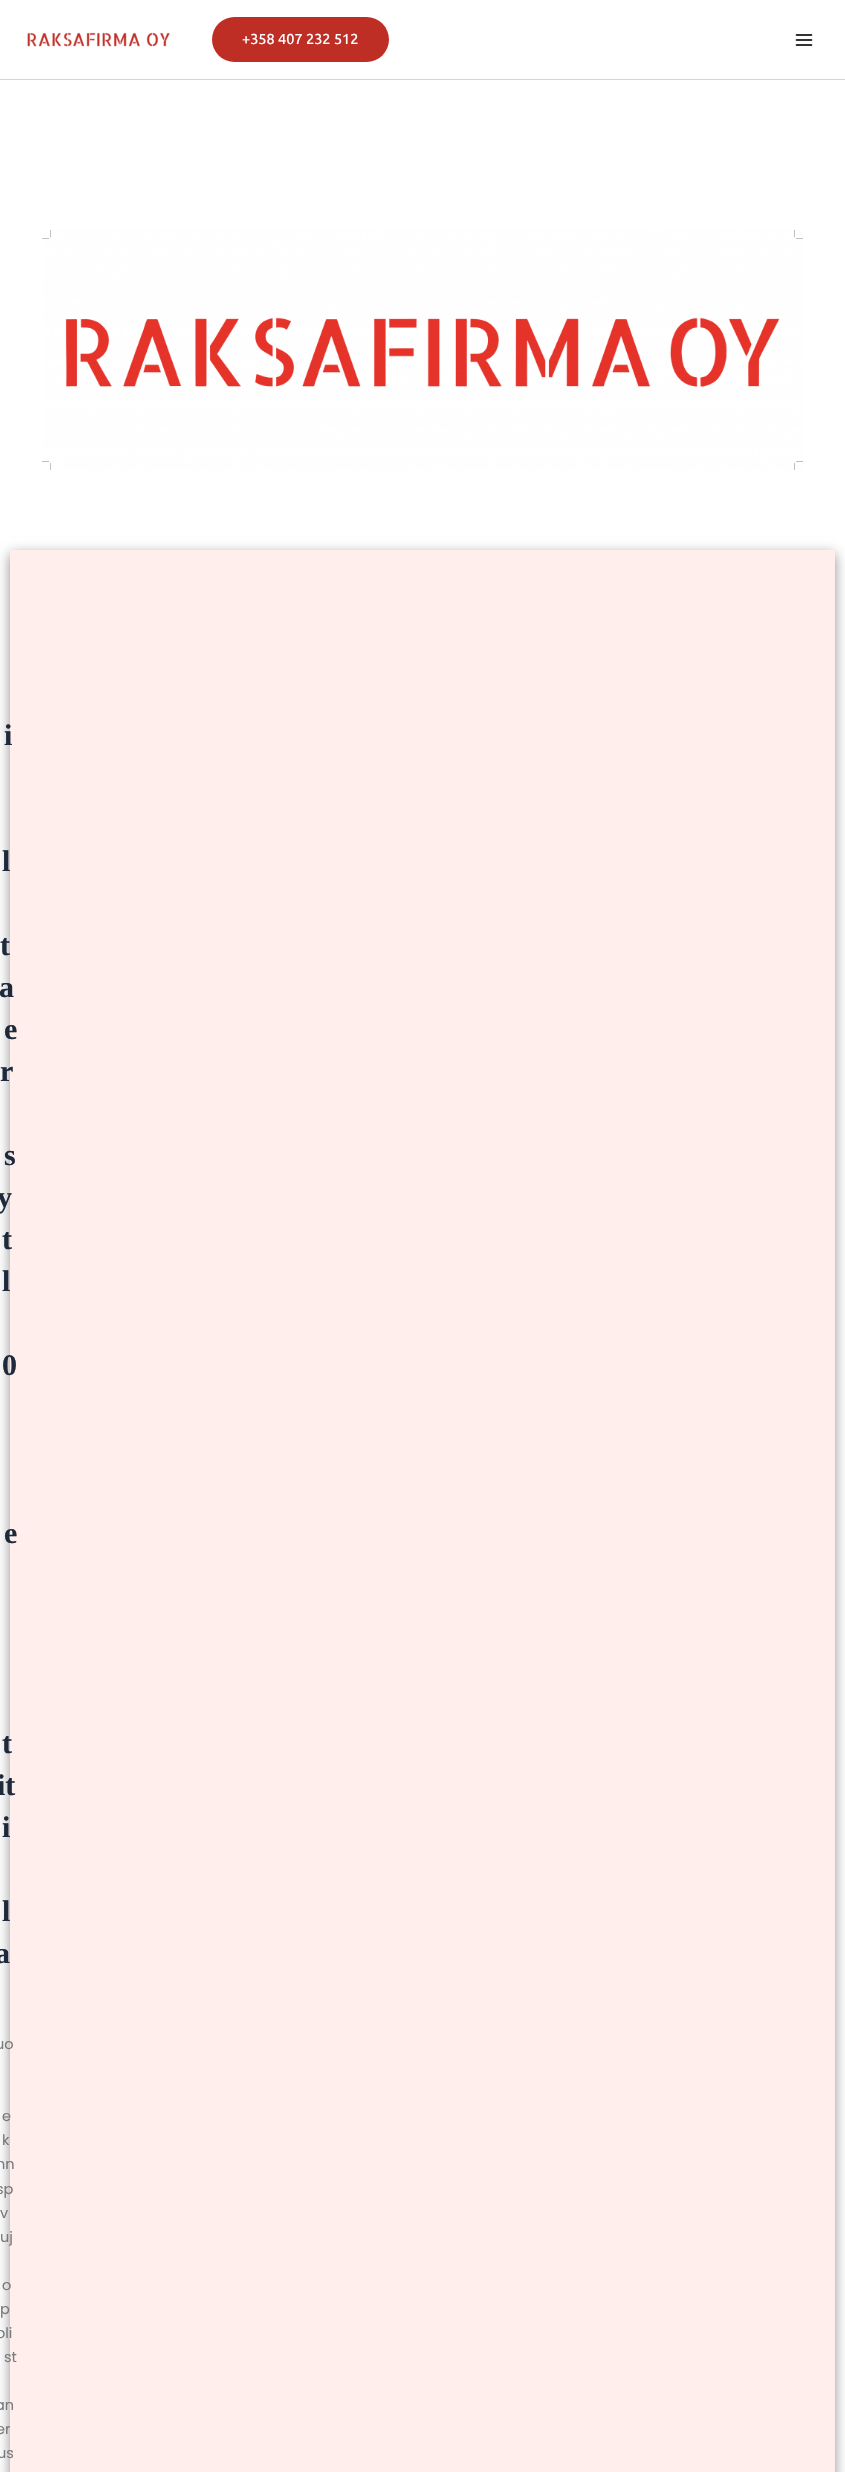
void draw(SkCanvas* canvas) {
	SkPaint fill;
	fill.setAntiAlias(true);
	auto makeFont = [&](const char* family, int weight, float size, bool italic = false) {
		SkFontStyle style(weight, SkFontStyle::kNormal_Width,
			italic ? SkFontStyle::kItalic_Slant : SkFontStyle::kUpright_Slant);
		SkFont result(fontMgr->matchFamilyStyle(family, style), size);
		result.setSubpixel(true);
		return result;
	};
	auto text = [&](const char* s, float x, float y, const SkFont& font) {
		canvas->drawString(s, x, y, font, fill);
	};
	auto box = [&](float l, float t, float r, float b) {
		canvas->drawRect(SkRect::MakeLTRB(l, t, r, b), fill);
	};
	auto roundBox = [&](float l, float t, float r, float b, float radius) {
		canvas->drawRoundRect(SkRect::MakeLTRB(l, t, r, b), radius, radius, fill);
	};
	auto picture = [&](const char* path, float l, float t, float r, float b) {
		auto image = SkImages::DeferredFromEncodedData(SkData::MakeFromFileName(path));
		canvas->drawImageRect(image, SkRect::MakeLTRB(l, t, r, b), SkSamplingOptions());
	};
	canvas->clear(0xFFFFFFFF);
	fill.setColor(0xFFD1D5DB);
	box(0, 79, 845, 80);
	picture("image0.png", 27, 32, 170, 47);
	fill.setColor(0xFFBE2E25);
	roundBox(212, 17, 389, 62, 22.5f);
	picture("image1.png", 795, 34, 813, 46);
	picture("image2.png", 42, 230, 803, 470);
	fill.setColor(0x70000000);
	fill.setMaskFilter(SkMaskFilter::MakeBlur(kNormal_SkBlurStyle, 6));
	canvas->drawRect(SkRect::MakeLTRB(10, 554, 835, 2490), fill);
	fill.setMaskFilter(nullptr);
	fill.setColor(0xFFFFEEEB);
	box(10, 550, 835, 2472);
	auto font1 = makeFont("Ubuntu", 500, 14.5f);
	fill.setColor(0xFFFFFFFF);
	text("+358 407 232 512", 242, 44, font1);
	auto font2 = makeFont("Liberation Serif", 700, 30);
	fill.setColor(0xFF1E293B);
	text("i", 4, 745, font2);
	text("l", 2, 871, font2);
	text("t", 0, 955, font2);
	text("a", -1, 997, font2);
	text("e", 4, 1039, font2);
	text("r", 0, 1081, font2);
	text("s", 4, 1165, font2);
	text("y", -3, 1207, font2);
	text("t", 2, 1249, font2);
	text("l", 2, 1291, font2);
	text("0", 2, 1375, font2);
	text("e", 4, 1543, font2);
	text("t", 2, 1753, font2);
	text("it", -3, 1795, font2);
	text("i", 2, 1837, font2);
	text("l", 2, 1921, font2);
	text("a", -5, 1963, font2);
	auto font3 = makeFont("Poppins", 400, 14.5f);
	fill.setColor(0xFF7A7A7A);
	text("uo", -5, 2049, font3);
	text("e", 2, 2121, font3);
	text("k", 2, 2145, font3);
	text("nn", -4, 2169, font3);
	text("sp", -4, 2194, font3);
	text("v", 0, 2218, font3);
	text("uj", 0, 2242, font3);
	text("o", 2, 2290, font3);
	text("p", 0, 2314, font3);
	text("oli", -4, 2338, font3);
	text("st", 4, 2362, font3);
	text("an", -5, 2410, font3);
	text("er", -4, 2434, font3);
	text("us", -3, 2458, font3);
}
